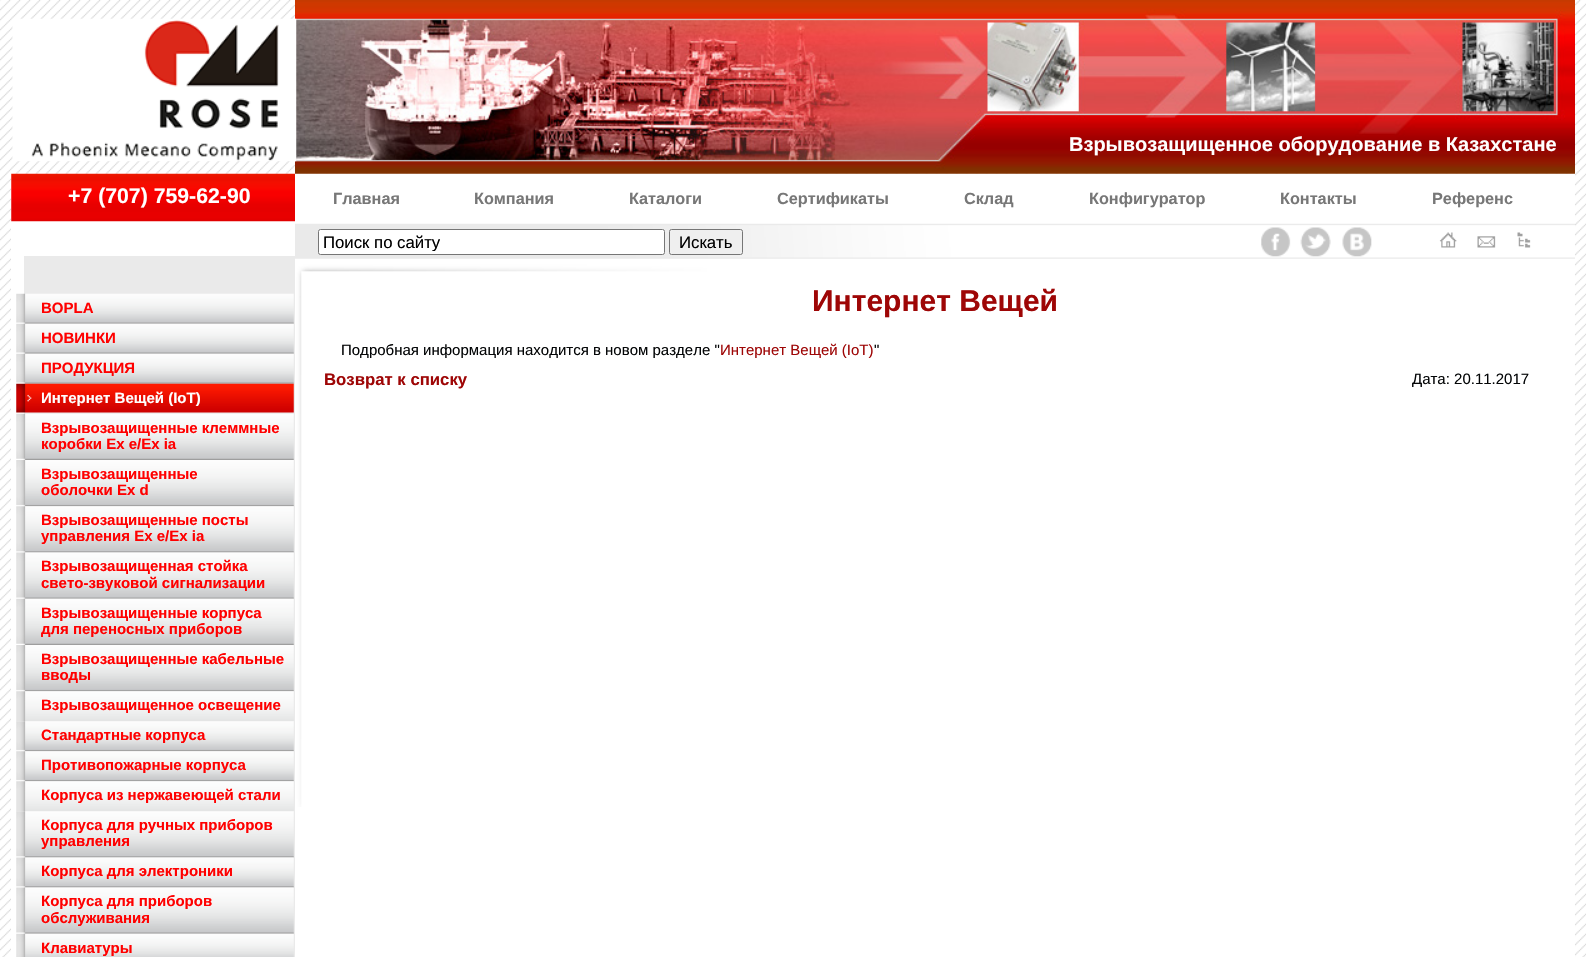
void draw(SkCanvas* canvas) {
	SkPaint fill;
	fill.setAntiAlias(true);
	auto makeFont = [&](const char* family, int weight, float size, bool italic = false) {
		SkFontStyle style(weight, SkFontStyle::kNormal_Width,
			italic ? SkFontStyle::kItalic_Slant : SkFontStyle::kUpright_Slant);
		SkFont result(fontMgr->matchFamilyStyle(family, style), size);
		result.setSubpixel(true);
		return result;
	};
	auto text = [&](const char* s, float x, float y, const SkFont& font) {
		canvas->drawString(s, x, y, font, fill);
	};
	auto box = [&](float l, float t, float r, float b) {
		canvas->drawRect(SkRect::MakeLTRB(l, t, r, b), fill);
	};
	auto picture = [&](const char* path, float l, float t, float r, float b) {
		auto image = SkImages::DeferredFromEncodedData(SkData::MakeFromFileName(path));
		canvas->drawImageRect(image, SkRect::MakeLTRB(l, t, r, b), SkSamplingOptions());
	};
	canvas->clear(0xFFFFFFFF);
	picture("image0.png", 0, 0, 1586, 957);
	fill.setColor(0xFFFFFFFF);
	box(11, 174, 1575, 957);
	picture("image20.png", 296, 173, 707, 807);
	picture("image1.png", 295, 0, 1575, 174);
	picture("image2.png", 12, 18, 297, 162);
	picture("image3.png", 11, 173, 295, 222);
	fill.setColor(0xFFEAEAEA);
	box(24, 256, 295, 957);
	picture("image4.png", 16, 293, 294, 324);
	picture("image5.png", 16, 323, 294, 354);
	picture("image5.png", 16, 353, 294, 384);
	picture("image6.png", 16, 383, 294, 413);
	picture("image7.png", 16, 413, 294, 460);
	picture("image8.png", 16, 460, 294, 507);
	picture("image9.png", 16, 506, 294, 553);
	picture("image10.png", 16, 552, 294, 599);
	picture("image11.png", 16, 598, 294, 645);
	picture("image8.png", 16, 645, 294, 692);
	picture("image12.png", 16, 691, 294, 722);
	picture("image13.png", 16, 721, 294, 752);
	picture("image14.png", 16, 751, 294, 782);
	picture("image15.png", 16, 781, 294, 812);
	picture("image16.png", 16, 811, 294, 858);
	picture("image17.png", 16, 857, 294, 888);
	picture("image18.png", 16, 887, 294, 934);
	picture("image19.png", 16, 933, 294, 957);
	picture("image21.png", 295, 223, 1575, 259);
	fill.setColor(0xFFFFFFFF);
	canvas->drawRoundRect(SkRect::MakeLTRB(318.5f, 229.5f, 664.5f, 254.5f), 2, 2, fill);
	fill.setStyle(SkPaint::kStroke_Style);
	fill.setStrokeWidth(1);
	fill.setColor(0xFF767676);
	canvas->drawRoundRect(SkRect::MakeLTRB(318.5f, 229.5f, 664.5f, 254.5f), 2, 2, fill);
	fill.setStyle(SkPaint::kFill_Style);
	fill.setColor(0xFFEFEFEF);
	canvas->drawRoundRect(SkRect::MakeLTRB(669.5f, 229.5f, 742.5f, 254.5f), 2, 2, fill);
	fill.setStyle(SkPaint::kStroke_Style);
	fill.setColor(0xFF767676);
	canvas->drawRoundRect(SkRect::MakeLTRB(669.5f, 229.5f, 742.5f, 254.5f), 2, 2, fill);
	picture("image22.png", 1261, 227, 1291, 257);
	picture("image23.png", 1300, 227, 1331, 257);
	picture("image24.png", 1342, 227, 1372, 257);
	picture("image25.png", 1439, 232, 1457, 248);
	picture("image26.png", 1477, 236, 1496, 248);
	picture("image27.png", 1517, 232, 1531, 248);
	auto font1 = makeFont("Liberation Sans", 700, 20);
	fill.setStyle(SkPaint::kFill_Style);
	fill.setColor(0xFFFFFFFF);
	text("Взрывозащищенное оборудование в Казахстане", 1069, 151, font1);
	auto font2 = makeFont("Liberation Sans", 700, 21.25f);
	text("+7 (707) 759-62-90", 68, 203, font2);
	auto font3 = makeFont("Liberation Sans", 700, 15);
	fill.setColor(0xFFFF0000);
	text("BOPLA", 41, 313, font3);
	text("НОВИНКИ", 41, 343, font3);
	text("ПРОДУКЦИЯ", 41, 373, font3);
	fill.setColor(0xFFFFFFFF);
	text("Интернет Вещей (IoT)", 41, 403, font3);
	fill.setColor(0xFFFF0000);
	text("Взрывозащищенные клеммные", 41, 433, font3);
	text("коробки Ex e/Ex ia", 41, 449, font3);
	text("Взрывозащищенные", 41, 479, font3);
	text("оболочки Ex d", 41, 495, font3);
	text("Взрывозащищенные посты", 41, 525, font3);
	text("управления Ex e/Ex ia", 41, 541, font3);
	text("Взрывозащищенная стойка", 41, 571, font3);
	text("свето-звуковой сигнализации", 41, 588, font3);
	text("Взрывозащищенные корпуса", 41, 618, font3);
	text("для переносных приборов", 41, 634, font3);
	text("Взрывозащищенные кабельные", 41, 664, font3);
	text("вводы", 41, 680, font3);
	text("Взрывозащищенное освещение", 41, 710, font3);
	text("Стандартные корпуса", 41, 740, font3);
	text("Противопожарные корпуса", 41, 770, font3);
	text("Корпуса из нержавеющей стали", 41, 800, font3);
	text("Корпуса для ручных приборов", 41, 830, font3);
	text("управления", 41, 846, font3);
	text("Корпуса для электроники", 41, 876, font3);
	text("Корпуса для приборов", 41, 906, font3);
	text("обслуживания", 41, 923, font3);
	text("Клавиатуры", 41, 953, font3);
	auto font4 = makeFont("Liberation Sans", 700, 16.25f);
	fill.setColor(0xFF777777);
	text("Главная", 333, 204, font4);
	text("Компания", 474, 204, font4);
	text("Каталоги", 629, 204, font4);
	text("Сертификаты", 777, 204, font4);
	text("Склад", 964, 204, font4);
	text("Конфигуратор", 1089, 204, font4);
	text("Контакты", 1280, 204, font4);
	text("Референс", 1432, 204, font4);
	canvas->save();
	canvas->clipRect(SkRect::MakeLTRB(323, 233, 660, 251));
	auto font5 = makeFont("Liberation Sans", 400, 16.75f);
	fill.setColor(0xFF000000);
	text("Поиск по сайту", 323, 248, font5);
	canvas->restore();
	text("Искать", 679, 248, font5);
	auto font6 = makeFont("Liberation Sans", 700, 30);
	fill.setColor(0xFF9E0606);
	text("Интернет Вещей", 812, 311, font6);
	auto font7 = makeFont("Liberation Sans", 400, 15);
	fill.setColor(0xFF040607);
	text("Подробная информация находится в новом разделе \"", 341, 355, font7);
	fill.setColor(0xFF9E0606);
	text("Интернет Вещей (IoT)", 720, 355, font7);
	fill.setColor(0xFF040607);
	text("\"", 874, 355, font7);
	auto font8 = makeFont("Liberation Sans", 700, 16.75f);
	fill.setColor(0xFF9E0606);
	text("Возврат к списку", 324, 385, font8);
	fill.setColor(0xFF040607);
	text("Дата: 20.11.2017", 1412, 384, font7);
}
